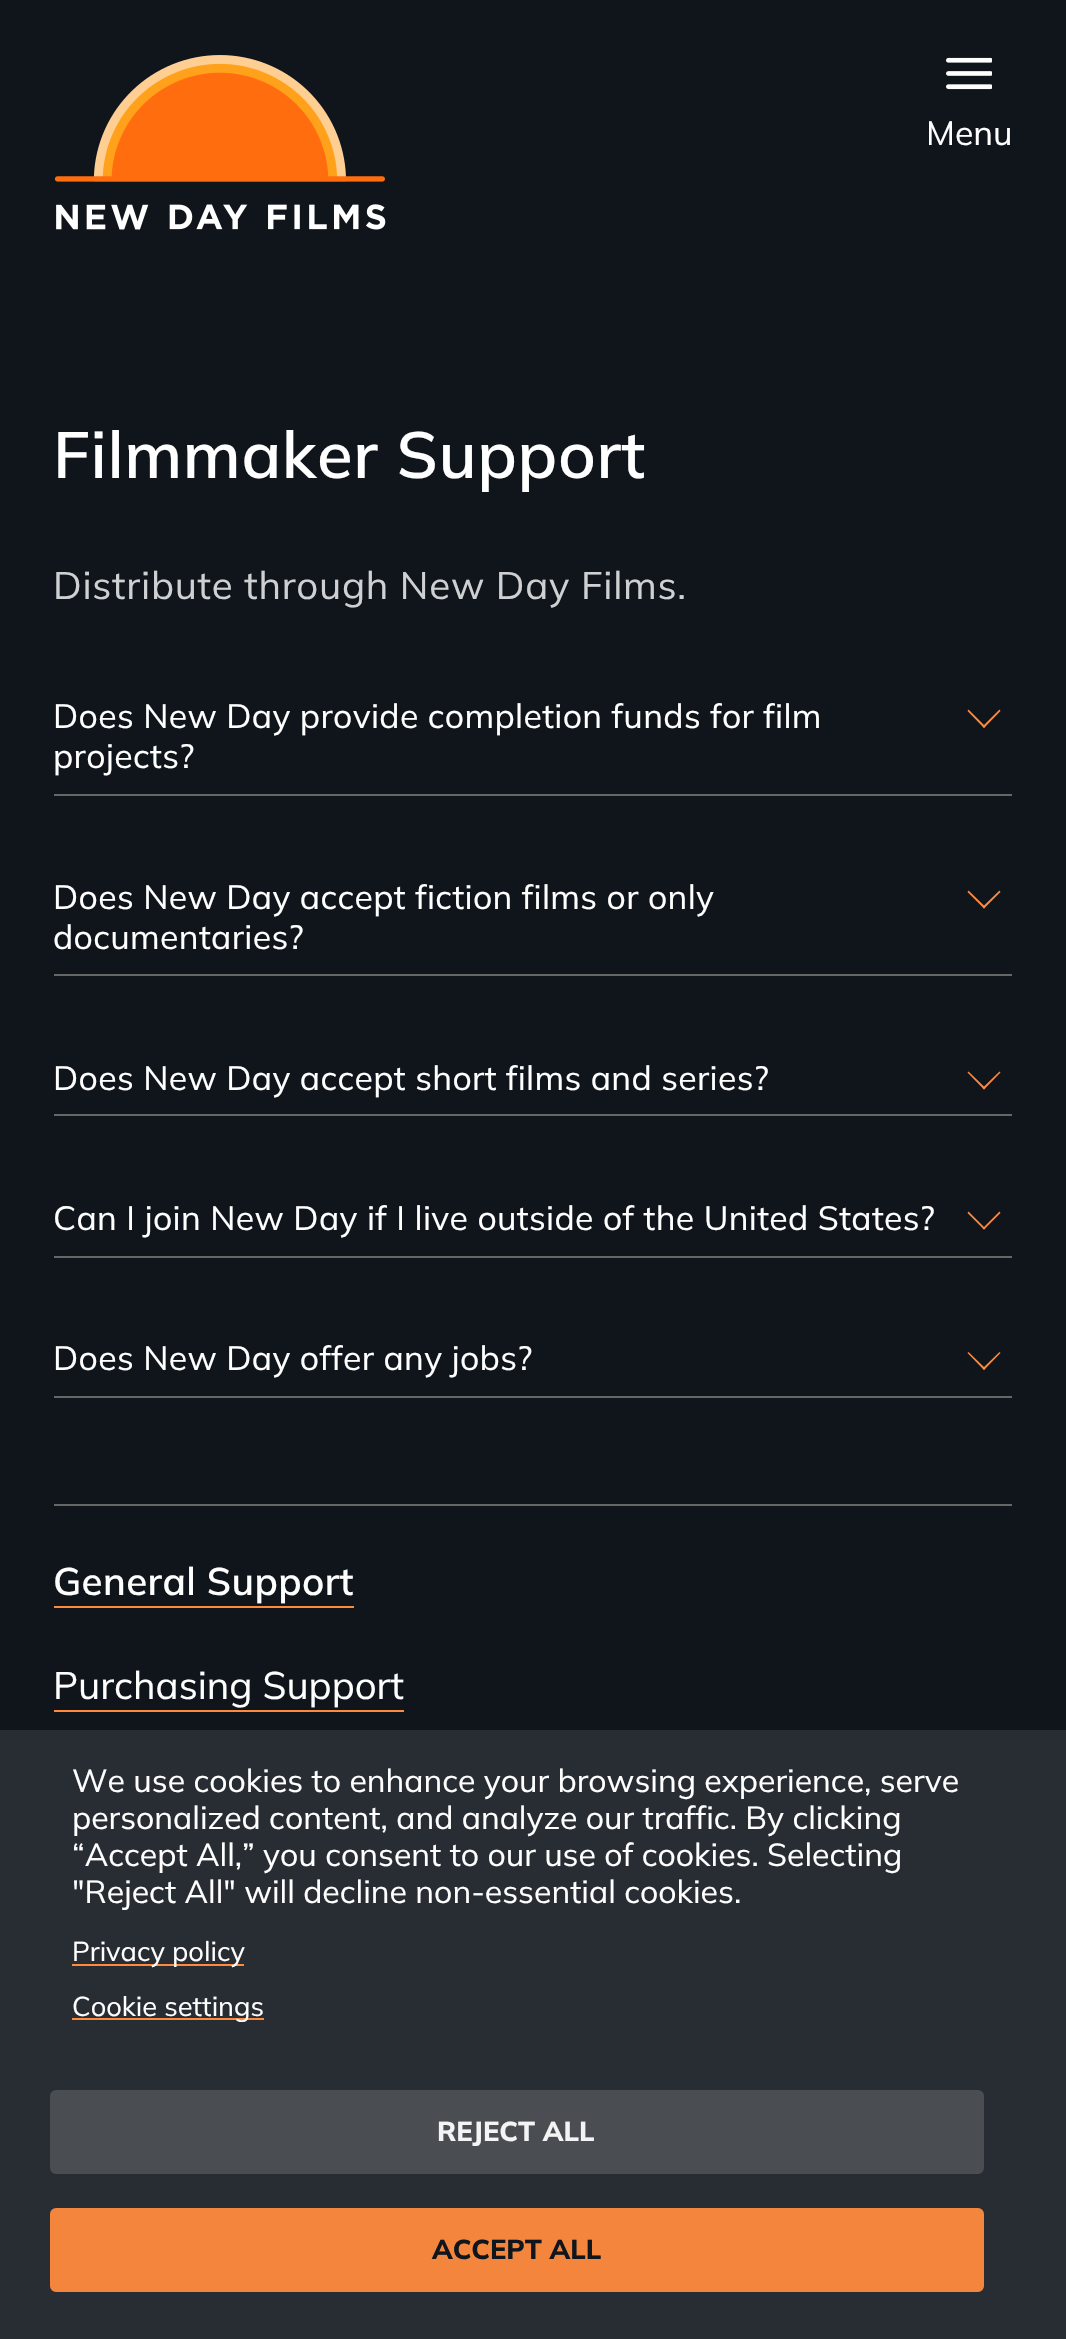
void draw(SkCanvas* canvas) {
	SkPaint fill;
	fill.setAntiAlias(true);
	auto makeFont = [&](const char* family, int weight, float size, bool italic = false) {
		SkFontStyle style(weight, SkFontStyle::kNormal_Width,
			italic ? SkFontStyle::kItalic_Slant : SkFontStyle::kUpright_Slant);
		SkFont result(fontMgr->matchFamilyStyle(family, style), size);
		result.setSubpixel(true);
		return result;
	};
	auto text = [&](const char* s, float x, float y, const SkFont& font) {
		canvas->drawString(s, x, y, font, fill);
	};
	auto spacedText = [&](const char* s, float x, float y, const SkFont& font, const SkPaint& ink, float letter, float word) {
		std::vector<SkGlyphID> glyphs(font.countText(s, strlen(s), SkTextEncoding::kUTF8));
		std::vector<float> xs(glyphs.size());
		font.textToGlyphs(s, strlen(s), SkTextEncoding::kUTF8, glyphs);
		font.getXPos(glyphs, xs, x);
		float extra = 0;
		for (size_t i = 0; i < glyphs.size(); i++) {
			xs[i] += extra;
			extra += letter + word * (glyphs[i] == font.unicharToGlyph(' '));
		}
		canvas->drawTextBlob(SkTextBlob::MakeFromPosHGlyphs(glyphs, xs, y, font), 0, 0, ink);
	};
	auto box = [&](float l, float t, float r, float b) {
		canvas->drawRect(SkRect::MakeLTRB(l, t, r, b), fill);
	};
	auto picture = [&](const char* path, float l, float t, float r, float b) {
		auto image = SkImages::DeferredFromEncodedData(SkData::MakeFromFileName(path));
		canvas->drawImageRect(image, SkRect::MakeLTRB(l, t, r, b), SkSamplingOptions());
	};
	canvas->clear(0xFF10151C);
	picture("image0.png", 54, 55, 386, 230);
	picture("image1.png", 946, 57, 992, 90);
	fill.setColor(0xFF282C33);
	box(0, 1730, 1066, 2339);
	fill.setColor(0xFFFF8A3E);
	box(72, 1964, 244, 1966);
	box(72, 2018, 264, 2020);
	fill.setColor(0xFF4A4E53);
	canvas->drawRoundRect(SkRect::MakeLTRB(51, 2091, 983, 2173), 5, 5, fill);
	fill.setStyle(SkPaint::kStroke_Style);
	fill.setStrokeWidth(2);
	canvas->drawRoundRect(SkRect::MakeLTRB(51, 2091, 983, 2173), 5, 5, fill);
	fill.setStyle(SkPaint::kFill_Style);
	fill.setColor(0xFFF4853D);
	canvas->drawRoundRect(SkRect::MakeLTRB(51, 2209, 983, 2291), 5, 5, fill);
	fill.setStyle(SkPaint::kStroke_Style);
	canvas->drawRoundRect(SkRect::MakeLTRB(51, 2209, 983, 2291), 5, 5, fill);
	fill.setStyle(SkPaint::kFill_Style);
	fill.setColor(0xFF666666);
	box(54, 794, 1012, 796);
	fill.setColor(0xFFFF8A3E);
	canvas->drawPath(SkPathBuilder().moveTo(999.5f, 709.5f).lineTo(1000.5f, 711).lineTo(984, 728).lineTo(982.5f, 726.5f).close().detach(), fill);
	canvas->drawPath(SkPathBuilder().moveTo(968.5f, 709.5f).lineTo(985.5f, 726.5f).lineTo(984, 728).lineTo(967.5f, 711).close().detach(), fill);
	fill.setColor(0xFF666666);
	box(54, 974, 1012, 976);
	fill.setColor(0xFFFF8A3E);
	canvas->drawPath(SkPathBuilder().moveTo(999.5f, 890.5f).lineTo(1000.5f, 892).lineTo(984, 908.5f).lineTo(982.5f, 907).close().detach(), fill);
	canvas->drawPath(SkPathBuilder().moveTo(968.5f, 890.5f).lineTo(985.5f, 907).lineTo(984, 908.5f).lineTo(967.5f, 892).close().detach(), fill);
	fill.setColor(0xFF666666);
	box(54, 1114, 1012, 1116);
	fill.setColor(0xFFFF8A3E);
	canvas->drawPath(SkPathBuilder().moveTo(999.5f, 1071.5f).lineTo(1000.5f, 1072.5f).lineTo(984, 1089.5f).lineTo(982.5f, 1088).close().detach(), fill);
	canvas->drawPath(SkPathBuilder().moveTo(968.5f, 1071.5f).lineTo(985.5f, 1088).lineTo(984, 1089.5f).lineTo(967.5f, 1072.5f).close().detach(), fill);
	fill.setColor(0xFF666666);
	box(54, 1256, 1012, 1258);
	fill.setColor(0xFFFF8A3E);
	canvas->drawPath(SkPathBuilder().moveTo(999.5f, 1211.5f).lineTo(1000.5f, 1213).lineTo(984, 1229.5f).lineTo(982.5f, 1228.5f).close().detach(), fill);
	canvas->drawPath(SkPathBuilder().moveTo(968.5f, 1211.5f).lineTo(985.5f, 1228.5f).lineTo(984, 1229.5f).lineTo(967.5f, 1213).close().detach(), fill);
	fill.setColor(0xFF666666);
	box(54, 1396, 1012, 1398);
	fill.setColor(0xFFFF8A3E);
	canvas->drawPath(SkPathBuilder().moveTo(999.5f, 1352).lineTo(1000.5f, 1353).lineTo(984, 1370).lineTo(982.5f, 1368.5f).close().detach(), fill);
	canvas->drawPath(SkPathBuilder().moveTo(968.5f, 1352).lineTo(985.5f, 1368.5f).lineTo(984, 1370).lineTo(967.5f, 1353).close().detach(), fill);
	fill.setColor(0xFF666666);
	box(54, 1504, 1012, 1506);
	fill.setColor(0xFFFF8A3E);
	box(54, 1606, 354, 1608);
	box(54, 1710, 404, 1712);
	auto font1 = makeFont("Mulish", 400, 33.75f);
	fill.setColor(0xFFFFFFFF);
	text("Menu", 926, 145, font1);
	auto font2 = makeFont("Mulish", 400, 32);
	text("We use cookies to enhance your browsing experience, serve", 72, 1792, font2);
	text("personalized content, and analyze our traffic. By clicking", 72, 1829, font2);
	text("“Accept All,” you consent to our use of cookies. Selecting", 72, 1866, font2);
	text("\"Reject All\" will decline non-essential cookies.", 72, 1903, font2);
	auto font3 = makeFont("Mulish", 400, 27.25f);
	text("Privacy policy", 72, 1961, font3);
	text("Cookie settings", 72, 2016, font3);
	auto font4 = makeFont("Mulish", 800, 27.25f);
	fill.setColor(0xFFF4F4F5);
	text("REJECT ALL", 437, 2141, font4);
	fill.setColor(0xFF11161D);
	text("ACCEPT ALL", 432, 2259, font4);
	auto font5 = makeFont("Mulish", 600, 65.25f);
	fill.setColor(0xFFFFFFFF);
	spacedText("Filmmaker Support", 53, 478, font5, fill, 0.6f, 0);
	auto font6 = makeFont("Mulish", 400, 38.4f);
	fill.setColor(0xFFCFD0D2);
	spacedText("Distribute through New Day Films.", 53, 599, font6, fill, 0.75f, 0);
	fill.setColor(0xFFFFFFFF);
	spacedText("Does New Day provide completion funds for film", 53, 728, font1, fill, 0.35f, 0);
	spacedText("projects?", 53, 768, font1, fill, 0.35f, 0);
	spacedText("Does New Day accept fiction films or only", 53, 909, font1, fill, 0.35f, 0);
	spacedText("documentaries?", 53, 949, font1, fill, 0.35f, 0);
	spacedText("Does New Day accept short films and series?", 53, 1090, font1, fill, 0.35f, 0);
	spacedText("Can I join New Day if I live outside of the United States?", 53, 1230, font1, fill, 0.35f, 0);
	spacedText("Does New Day offer any jobs?", 53, 1370, font1, fill, 0.35f, 0);
	auto font7 = makeFont("Mulish", 600, 38.4f);
	spacedText("General Support", 53, 1595, font7, fill, 0.4f, 0);
	text("Purchasing Support", 53, 1699, font6);
}
